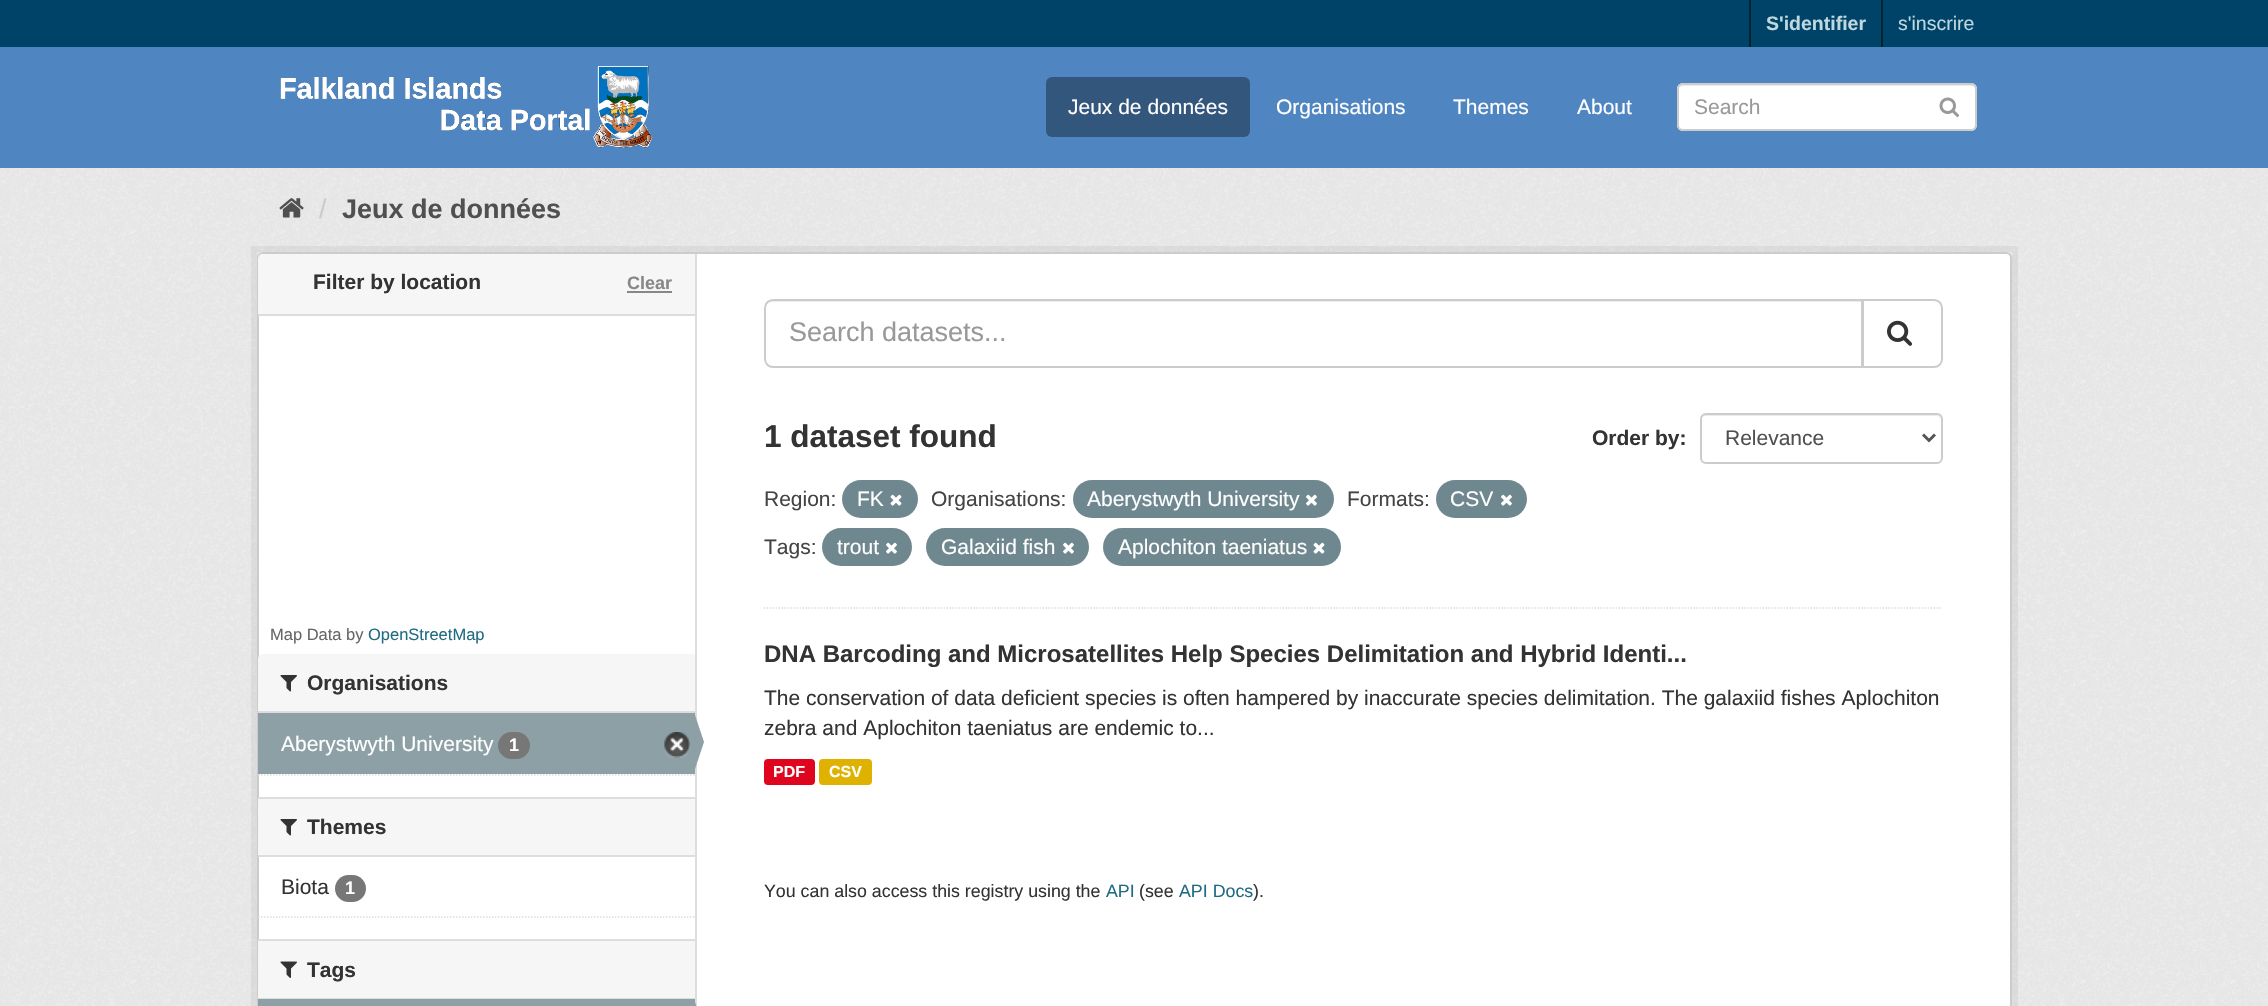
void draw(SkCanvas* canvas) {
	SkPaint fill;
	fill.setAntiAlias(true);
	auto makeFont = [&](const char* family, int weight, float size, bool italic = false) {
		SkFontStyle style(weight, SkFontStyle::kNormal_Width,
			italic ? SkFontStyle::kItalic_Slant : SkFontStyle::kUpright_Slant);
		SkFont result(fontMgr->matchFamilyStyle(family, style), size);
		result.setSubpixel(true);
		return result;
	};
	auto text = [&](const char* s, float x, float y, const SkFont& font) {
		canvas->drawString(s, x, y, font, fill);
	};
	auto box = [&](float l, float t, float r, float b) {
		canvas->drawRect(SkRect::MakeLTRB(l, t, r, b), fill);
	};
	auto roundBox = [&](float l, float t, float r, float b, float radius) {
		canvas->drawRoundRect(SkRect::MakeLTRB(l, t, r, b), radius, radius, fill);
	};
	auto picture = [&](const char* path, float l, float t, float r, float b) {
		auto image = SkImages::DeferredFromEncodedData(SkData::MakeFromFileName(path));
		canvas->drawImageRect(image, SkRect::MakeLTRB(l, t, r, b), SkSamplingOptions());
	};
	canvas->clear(0xFF004368);
	fill.setColor(0xFF00232E);
	box(1749, 0, 1751, 47);
	box(1881, 0, 1883, 47);
	fill.setColor(0xFF4F85C0);
	box(0, 47, 2268, 168);
	picture("image0.png", 280, 66, 653, 148);
	fill.setColor(0xFF33567D);
	roundBox(1046, 77, 1250, 137, 6);
	fill.setColor(0xFFFFFFFF);
	roundBox(1677, 83, 1977, 131, 6);
	fill.setColor(0xFFECECEC);
	canvas->drawPath(SkPathBuilder().moveTo(1683, 86).lineTo(1971, 86).cubicTo(1973, 86, 1976, 88, 1976, 90).lineTo(1976, 89).cubicTo(1976, 86, 1974, 84, 1971, 84).lineTo(1684, 84).cubicTo(1682, 84, 1680, 86, 1679, 88).cubicTo(1680, 87, 1682, 86, 1683, 86).close().detach(), fill);
	fill.setStyle(SkPaint::kStroke_Style);
	fill.setStrokeWidth(2);
	fill.setColor(0xFFCCCCCC);
	canvas->drawRoundRect(SkRect::MakeLTRB(1678, 84, 1976, 130), 5, 5, fill);
	picture("image1.png", 1939, 97, 1959, 117);
	fill.setStyle(SkPaint::kFill_Style);
	fill.setColor(0xFFEEEEEE);
	box(0, 168, 2268, 1006);
	picture("image2.png", 0, 168, 2268, 1006);
	picture("image3.png", 279, 198, 304, 218);
	fill.setStyle(SkPaint::kStroke_Style);
	fill.setStrokeWidth(6);
	fill.setColor(0x0D000000);
	canvas->drawRect(SkRect::MakeLTRB(254, 249, 2015, 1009), fill);
	fill.setStyle(SkPaint::kFill_Style);
	fill.setColor(0xFFFFFFFF);
	canvas->drawRoundRect(SkRect::MakeLTRB(258, 253, 2011, 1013), 5, 5, fill);
	fill.setStyle(SkPaint::kStroke_Style);
	fill.setStrokeWidth(2);
	fill.setColor(0xFFCCCCCC);
	canvas->drawRoundRect(SkRect::MakeLTRB(258, 253, 2011, 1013), 5, 5, fill);
	fill.setStyle(SkPaint::kFill_Style);
	fill.setColor(0xFFF6F6F6);
	canvas->drawPath(SkPathBuilder().moveTo(263, 254).lineTo(695, 254).lineTo(695, 315).lineTo(258, 315).lineTo(258, 259).cubicTo(258, 256, 260, 254, 263, 254).close().detach(), fill);
	fill.setColor(0xFFDDDDDD);
	box(258, 314, 695, 316);
	fill.setColor(0xFF888888);
	box(627, 291, 672, 293);
	fill.setColor(0xFFF6F6F6);
	canvas->drawPath(SkPathBuilder().moveTo(263, 654).lineTo(695, 654).lineTo(695, 713).lineTo(258, 713).lineTo(258, 659).cubicTo(258, 656, 260, 654, 263, 654).close().detach(), fill);
	fill.setColor(0xFFDDDDDD);
	box(258, 711, 695, 713);
	picture("image4.png", 280, 675, 297, 692);
	fill.setColor(0xFF8CA0A6);
	box(258, 713, 695, 774);
	fill.setColor(0xFF777777);
	roundBox(498, 732, 530, 759, 13.5f);
	picture("image5.png", 664, 732, 690, 758);
	fill.setColor(0xFFDDDDDD);
	box(695, 254, 697, 1006);
	fill.setColor(0xFF8CA0A6);
	canvas->drawPath(SkPathBuilder().moveTo(694, 772).lineTo(694, 712).lineTo(704, 742).close().detach(), fill);
	fill.setStyle(SkPaint::kStroke_Style);
	fill.setStrokeWidth(1.5f);
	fill.setColor(0xFFDDDDDD);
	fill.setPathEffect(SkDashPathEffect::Make({{1.5f, 1.5f}}, 0));
	canvas->drawPath(SkPathBuilder().moveTo(258, 775).lineTo(694.5f, 775).detach(), fill);
	fill.setPathEffect(nullptr);
	fill.setStyle(SkPaint::kFill_Style);
	fill.setColor(0xFFF6F6F6);
	box(258, 799, 695, 855);
	fill.setColor(0xFFDDDDDD);
	box(258, 797, 695, 799);
	box(258, 855, 695, 857);
	picture("image4.png", 280, 819, 297, 836);
	fill.setColor(0xFF777777);
	roundBox(335, 875, 366, 902, 13.5f);
	fill.setStyle(SkPaint::kStroke_Style);
	fill.setColor(0xFFDDDDDD);
	fill.setPathEffect(SkDashPathEffect::Make({{1.5f, 1.5f}}, 0));
	canvas->drawPath(SkPathBuilder().moveTo(258, 917).lineTo(694.5f, 917).detach(), fill);
	fill.setPathEffect(nullptr);
	fill.setStyle(SkPaint::kFill_Style);
	fill.setColor(0xFFF6F6F6);
	box(258, 941, 695, 998);
	fill.setColor(0xFFDDDDDD);
	box(258, 939, 695, 941);
	box(258, 998, 695, 999);
	picture("image6.png", 280, 961, 297, 978);
	fill.setColor(0xFF8CA0A6);
	box(258, 999, 695, 1006);
	canvas->drawPath(SkPathBuilder().moveTo(694, 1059).lineTo(694, 999).lineTo(704, 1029).close().detach(), fill);
	fill.setStyle(SkPaint::kStroke_Style);
	fill.setColor(0xFFDDDDDD);
	fill.setPathEffect(SkDashPathEffect::Make({{1.5f, 1.5f}}, 0));
	canvas->drawPath(SkPathBuilder().moveTo(763.5f, 608).lineTo(1942.5f, 608).detach(), fill);
	fill.setPathEffect(nullptr);
	fill.setStyle(SkPaint::kFill_Style);
	fill.setColor(0xFFECECEC);
	canvas->drawPath(SkPathBuilder().moveTo(772, 302).lineTo(1862, 302).lineTo(1862, 300).lineTo(773, 300).cubicTo(769, 300, 765, 304, 765, 308).lineTo(765, 309).cubicTo(765, 305, 768, 302, 772, 302).close().detach(), fill);
	fill.setStyle(SkPaint::kStroke_Style);
	fill.setStrokeWidth(2);
	fill.setColor(0xFFCCCCCC);
	canvas->drawPath(SkPathBuilder().moveTo(773, 300).lineTo(1862, 300).lineTo(1862, 367).lineTo(773, 367).cubicTo(768.5f, 367, 765, 363.5f, 765, 359).lineTo(765, 308).cubicTo(765, 303.5f, 768.5f, 300, 773, 300).close().detach(), fill);
	fill.setStyle(SkPaint::kFill_Style);
	fill.setColor(0xFFFFFFFF);
	canvas->drawPath(SkPathBuilder().moveTo(1863, 300).lineTo(1934, 300).cubicTo(1938.5f, 300, 1942, 303.5f, 1942, 308).lineTo(1942, 359).cubicTo(1942, 363.5f, 1938.5f, 367, 1934, 367).lineTo(1863, 367).close().detach(), fill);
	fill.setStyle(SkPaint::kStroke_Style);
	fill.setColor(0xFFCCCCCC);
	canvas->drawPath(SkPathBuilder().moveTo(1863, 300).lineTo(1934, 300).cubicTo(1938.5f, 300, 1942, 303.5f, 1942, 308).lineTo(1942, 359).cubicTo(1942, 363.5f, 1938.5f, 367, 1934, 367).lineTo(1863, 367).close().detach(), fill);
	picture("image7.png", 1887, 320, 1912, 346);
	fill.setStyle(SkPaint::kFill_Style);
	fill.setColor(0xFFECECEC);
	canvas->drawPath(SkPathBuilder().moveTo(1706, 416).lineTo(1936, 416).cubicTo(1939, 416, 1941, 418, 1941, 420).lineTo(1941, 419).cubicTo(1941, 416, 1939, 414, 1936, 414).lineTo(1706, 414).cubicTo(1703, 414, 1701, 416, 1701, 419).lineTo(1701, 420).cubicTo(1701, 418, 1703, 416, 1706, 416).close().detach(), fill);
	fill.setStyle(SkPaint::kStroke_Style);
	fill.setColor(0xFFCCCCCC);
	canvas->drawRoundRect(SkRect::MakeLTRB(1701, 414, 1942, 463), 5, 5, fill);
	fill.setStrokeWidth(3);
	fill.setColor(0xFF555555);
	canvas->drawPath(SkPathBuilder().moveTo(1923, 434.5f).lineTo(1929, 440.5f).lineTo(1935, 434.5f).detach(), fill);
	fill.setStyle(SkPaint::kFill_Style);
	fill.setColor(0xFF6F8890);
	roundBox(842, 480, 918, 518, 19);
	picture("image8.png", 890, 494, 902, 506);
	roundBox(1073, 480, 1334, 518, 19);
	picture("image9.png", 1306, 494, 1317, 506);
	roundBox(1436, 480, 1527, 518, 19);
	picture("image9.png", 1501, 494, 1512, 506);
	roundBox(822, 528, 912, 566, 19);
	picture("image9.png", 886, 542, 897, 554);
	roundBox(926, 528, 1089, 566, 19);
	picture("image9.png", 1063, 542, 1074, 554);
	roundBox(1103, 528, 1341, 566, 19);
	picture("image8.png", 1313, 542, 1325, 554);
	fill.setColor(0xFFE0051E);
	roundBox(764, 759, 815, 785, 4);
	fill.setColor(0xFFDFB100);
	roundBox(819, 759, 872, 785, 4);
	auto font1 = makeFont("Liberation Sans", 700, 19.5f);
	fill.setColor(0xFFBFD7DE);
	text("S'identifier", 1766, 30, font1);
	auto font2 = makeFont("Liberation Sans", 400, 19.5f);
	text("s'inscrire", 1898, 30, font2);
	auto font3 = makeFont("Liberation Sans", 400, 21);
	fill.setColor(0xFFFFFFFF);
	text("Jeux de données", 1068, 114, font3);
	text("Organisations", 1276, 114, font3);
	text("Themes", 1453, 114, font3);
	text("About", 1577, 114, font3);
	fill.setColor(0xFF999999);
	text("Search", 1694, 114, font3);
	auto font4 = makeFont("Liberation Sans", 400, 27);
	fill.setColor(0xFFCCCCCC);
	text("/", 319, 218, font4);
	auto font5 = makeFont("Liberation Sans", 700, 27);
	fill.setColor(0xFF505050);
	text("Jeux de données", 342, 218, font5);
	auto font6 = makeFont("Liberation Sans", 700, 21);
	fill.setColor(0xFF333333);
	text("Filter by location", 313, 289, font6);
	auto font7 = makeFont("Liberation Sans", 700, 18);
	fill.setColor(0xFF888888);
	text("Clear", 627, 289, font7);
	auto font8 = makeFont("Liberation Sans", 400, 16.5f);
	fill.setColor(0xFF666666);
	text("Map Data by", 270, 640, font8);
	fill.setColor(0xFF206B82);
	text("OpenStreetMap", 368, 640, font8);
	fill.setColor(0xFF333333);
	text("Organisations", 307, 690, font6);
	fill.setColor(0xFFFFFFFF);
	text("Aberystwyth University", 281, 751, font3);
	text("1", 509, 751, font7);
	fill.setColor(0xFF333333);
	text("Themes", 307, 834, font6);
	text("Biota", 281, 894, font3);
	fill.setColor(0xFFFFFFFF);
	text("1", 345, 894, font7);
	fill.setColor(0xFF333333);
	text("Tags", 307, 977, font6);
	fill.setColor(0xFF999999);
	text("Search datasets...", 789, 341, font4);
	auto font9 = makeFont("Liberation Sans", 700, 31.5f);
	fill.setColor(0xFF333333);
	text("1 dataset found", 764, 447, font9);
	text("Order by:", 1592, 445, font6);
	fill.setColor(0xFF505050);
	text("Relevance", 1725, 445, font3);
	fill.setColor(0xFF444444);
	text("Region:", 764, 506, font3);
	fill.setColor(0xFFFFFFFF);
	text("FK", 857, 506, font3);
	fill.setColor(0xFF444444);
	text("Organisations:", 931, 506, font3);
	fill.setColor(0xFFFFFFFF);
	text("Aberystwyth University", 1087, 506, font3);
	fill.setColor(0xFF444444);
	text("Formats:", 1347, 506, font3);
	fill.setColor(0xFFFFFFFF);
	text("CSV", 1450, 506, font3);
	fill.setColor(0xFF444444);
	text("Tags:", 764, 554, font3);
	fill.setColor(0xFFFFFFFF);
	text("trout", 837, 554, font3);
	text("Galaxiid fish", 941, 554, font3);
	text("Aplochiton taeniatus", 1118, 554, font3);
	auto font10 = makeFont("Liberation Sans", 700, 24);
	fill.setColor(0xFF333333);
	text("DNA Barcoding and Microsatellites Help Species Delimitation and Hybrid Identi...", 764, 662, font10);
	text("The conservation of data deficient species is often hampered by inaccurate species delimitation. The galaxiid fishes Aplochiton", 764, 705, font3);
	text("zebra and Aplochiton taeniatus are endemic to...", 764, 735, font3);
	auto font11 = makeFont("Liberation Sans", 700, 16);
	fill.setColor(0xFFFFFFFF);
	text("PDF", 773, 777, font11);
	text("CSV", 829, 777, font11);
	auto font12 = makeFont("Liberation Sans", 400, 17.8f);
	fill.setColor(0xFF333333);
	text("You can also access this registry using the", 764, 897, font12);
	fill.setColor(0xFF206B82);
	text("API", 1106, 897, font12);
	fill.setColor(0xFF333333);
	text("(see", 1139, 897, font12);
	fill.setColor(0xFF206B82);
	text("API Docs", 1179, 897, font12);
	fill.setColor(0xFF333333);
	text(").", 1253, 897, font12);
}
